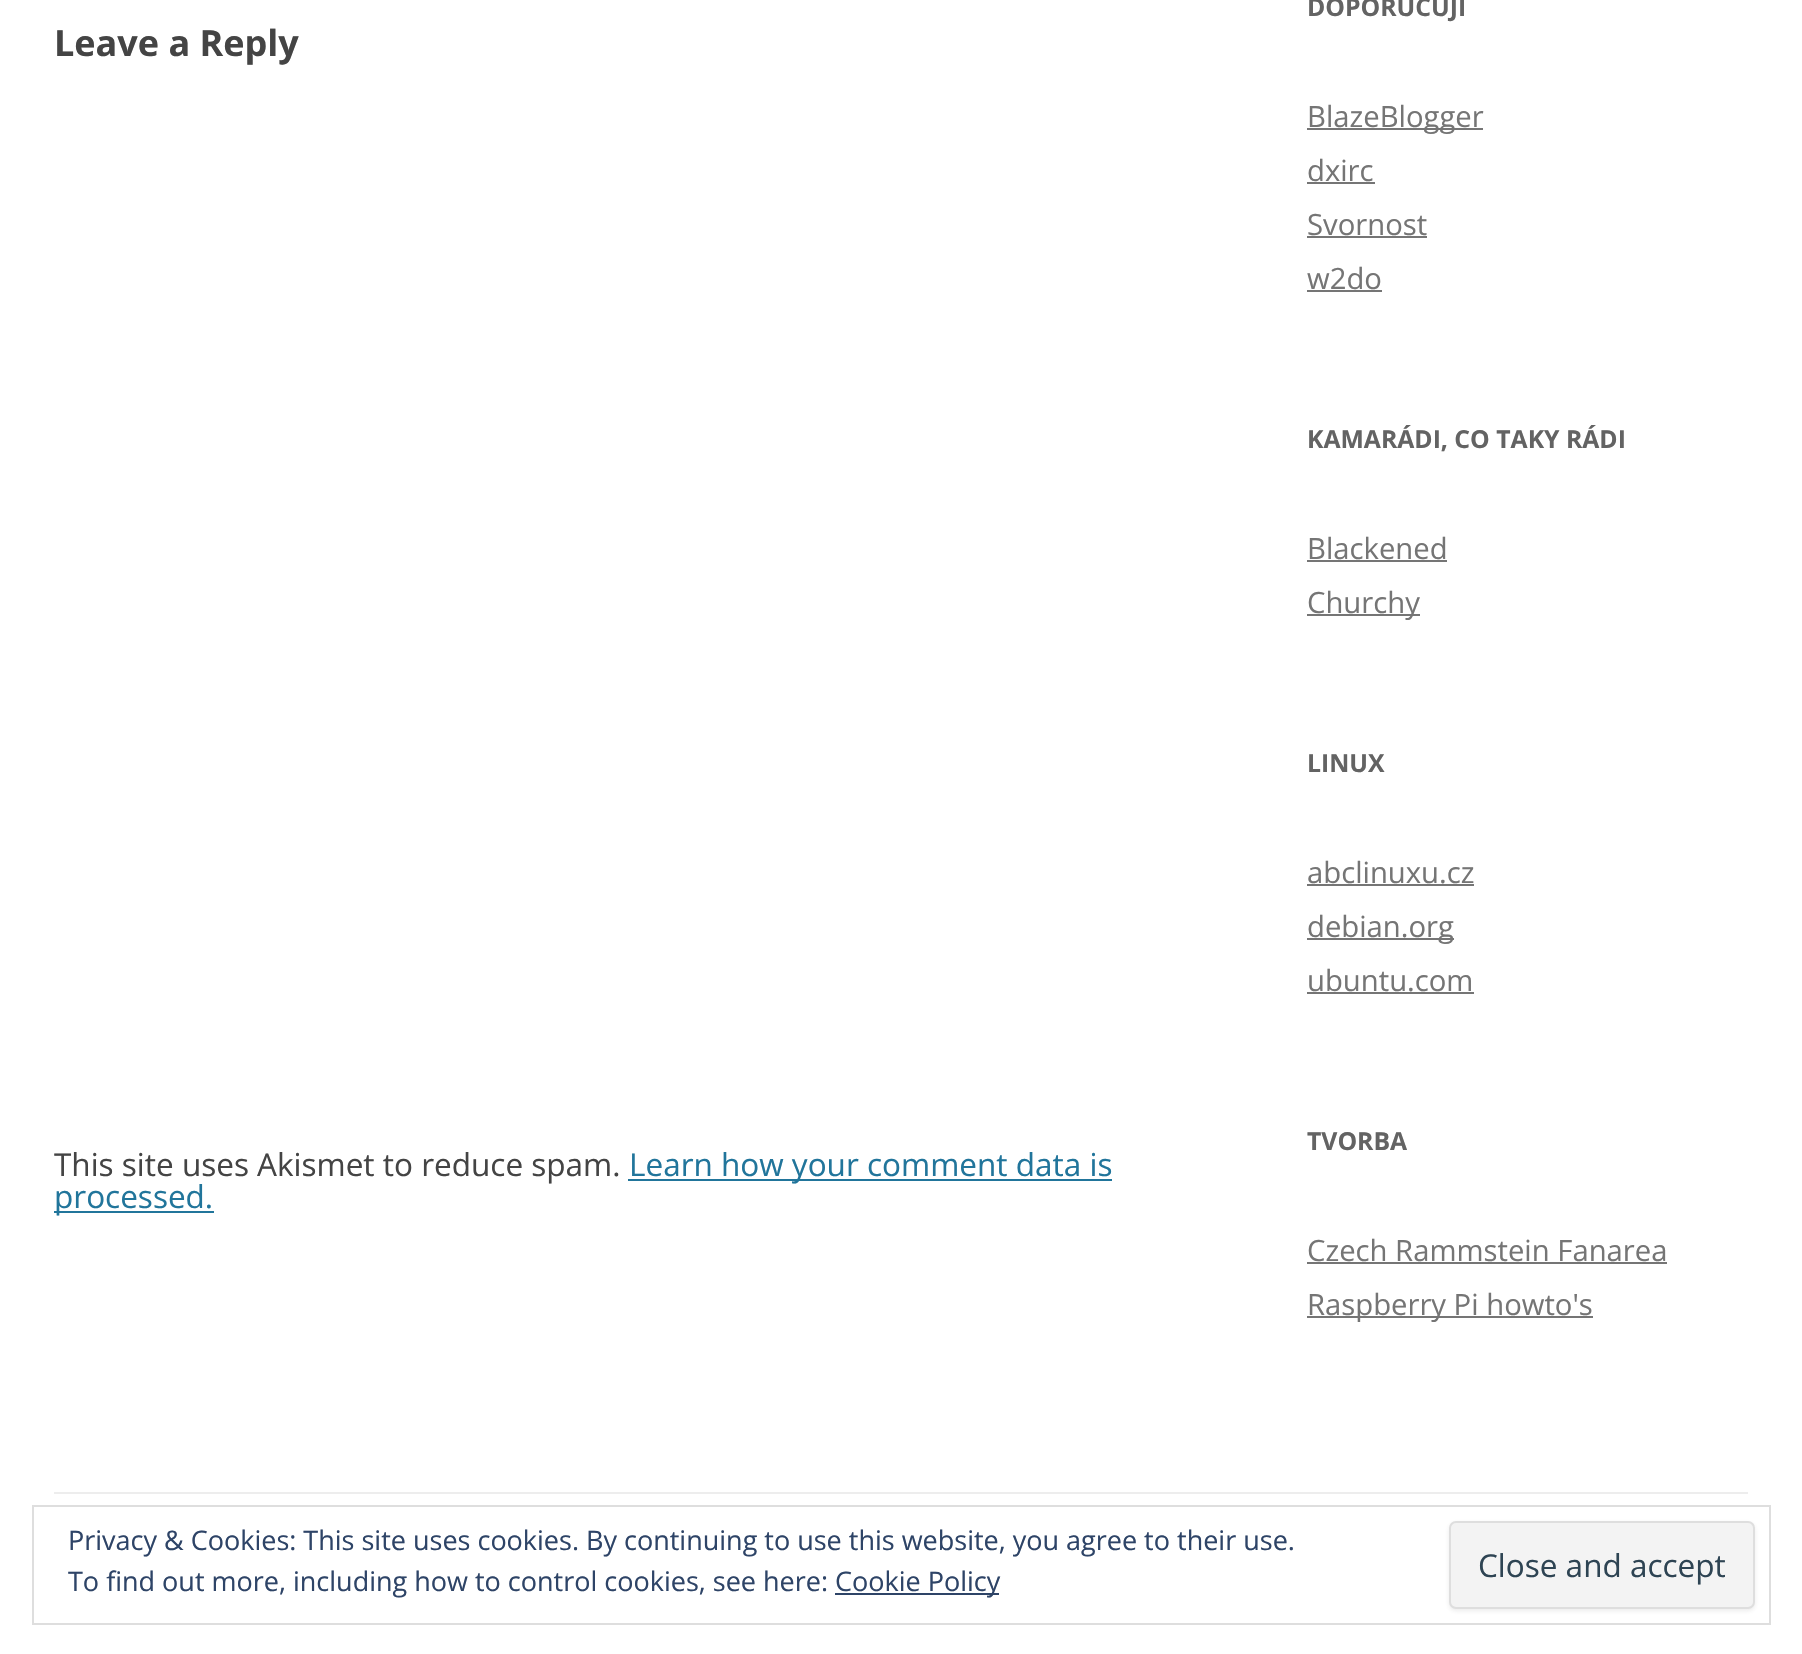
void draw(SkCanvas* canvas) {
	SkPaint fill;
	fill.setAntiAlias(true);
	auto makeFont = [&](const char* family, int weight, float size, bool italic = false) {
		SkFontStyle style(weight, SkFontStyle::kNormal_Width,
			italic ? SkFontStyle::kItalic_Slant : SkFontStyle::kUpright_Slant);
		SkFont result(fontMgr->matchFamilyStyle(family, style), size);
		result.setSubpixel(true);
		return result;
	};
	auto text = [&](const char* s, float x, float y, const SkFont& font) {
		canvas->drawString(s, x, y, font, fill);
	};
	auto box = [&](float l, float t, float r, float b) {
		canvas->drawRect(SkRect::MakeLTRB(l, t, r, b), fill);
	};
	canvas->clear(0xFFFFFFFF);
	fill.setColor(0xFF21759B);
	box(628, 1179, 1112, 1181);
	box(54, 1211, 214, 1213);
	fill.setColor(0xFF757575);
	box(1307, 128, 1483, 130);
	box(1307, 182, 1375, 184);
	box(1307, 236, 1427, 238);
	box(1307, 290, 1382, 292);
	box(1307, 560, 1447, 562);
	box(1307, 614, 1420, 616);
	box(1307, 884, 1474, 886);
	box(1307, 938, 1454, 940);
	box(1307, 992, 1474, 994);
	box(1307, 1262, 1667, 1264);
	box(1307, 1316, 1593, 1318);
	fill.setColor(0xFFEDEDED);
	box(54, 1492, 1748, 1494);
	fill.setStyle(SkPaint::kStroke_Style);
	fill.setStrokeWidth(2);
	fill.setColor(0xFFDEDEDE);
	canvas->drawRect(SkRect::MakeLTRB(33, 1506, 1770, 1624), fill);
	fill.setStyle(SkPaint::kFill_Style);
	fill.setColor(0xFF2E4467);
	box(835, 1593, 999, 1595);
	fill.setColor(0x1A404040);
	fill.setMaskFilter(SkMaskFilter::MakeBlur(kNormal_SkBlurStyle, 2));
	canvas->drawRoundRect(SkRect::MakeLTRB(1449, 1523, 1755, 1611), 7, 7, fill);
	fill.setMaskFilter(nullptr);
	fill.setColor(0xFFF3F3F3);
	canvas->drawRoundRect(SkRect::MakeLTRB(1450, 1522, 1754, 1608), 6, 6, fill);
	fill.setStyle(SkPaint::kStroke_Style);
	fill.setColor(0xFFDEDEDE);
	canvas->drawRoundRect(SkRect::MakeLTRB(1450, 1522, 1754, 1608), 6, 6, fill);
	auto font1 = makeFont("Open Sans", 700, 36);
	fill.setStyle(SkPaint::kFill_Style);
	fill.setColor(0xFF444444);
	text("Leave a Reply", 54, 56, font1);
	auto font2 = makeFont("Open Sans", 400, 31.5f);
	text("This site uses Akismet to reduce spam.", 54, 1176, font2);
	fill.setColor(0xFF21759B);
	text("Learn how your comment data is", 629, 1176, font2);
	text("processed.", 54, 1208, font2);
	auto font3 = makeFont("Open Sans", 700, 24.75f);
	fill.setColor(0xFF636363);
	text("DOPORUČUJI", 1307, 16, font3);
	auto font4 = makeFont("Open Sans", 400, 29.25f);
	fill.setColor(0xFF757575);
	text("BlazeBlogger", 1307, 127, font4);
	text("dxirc", 1307, 181, font4);
	text("Svornost", 1307, 235, font4);
	text("w2do", 1307, 289, font4);
	fill.setColor(0xFF636363);
	text("KAMARÁDI, CO TAKY RÁDI", 1307, 448, font3);
	fill.setColor(0xFF757575);
	text("Blackened", 1307, 559, font4);
	text("Churchy", 1307, 613, font4);
	fill.setColor(0xFF636363);
	text("LINUX", 1307, 772, font3);
	fill.setColor(0xFF757575);
	text("abclinuxu.cz", 1307, 883, font4);
	text("debian.org", 1307, 937, font4);
	text("ubuntu.com", 1307, 991, font4);
	fill.setColor(0xFF636363);
	text("TVORBA", 1307, 1150, font3);
	fill.setColor(0xFF757575);
	text("Czech Rammstein Fanarea", 1307, 1261, font4);
	text("Raspberry Pi howto's", 1307, 1315, font4);
	auto font5 = makeFont("Open Sans", 400, 27);
	fill.setColor(0xFF2E4467);
	text("Privacy & Cookies: This site uses cookies. By continuing to use this website, you agree to their use.", 68, 1550, font5);
	text("To find out more, including how to control cookies, see here:", 68, 1591, font5);
	text("Cookie Policy", 835, 1591, font5);
	fill.setColor(0xFF2E4453);
	text("Close and accept", 1478, 1577, font2);
}
